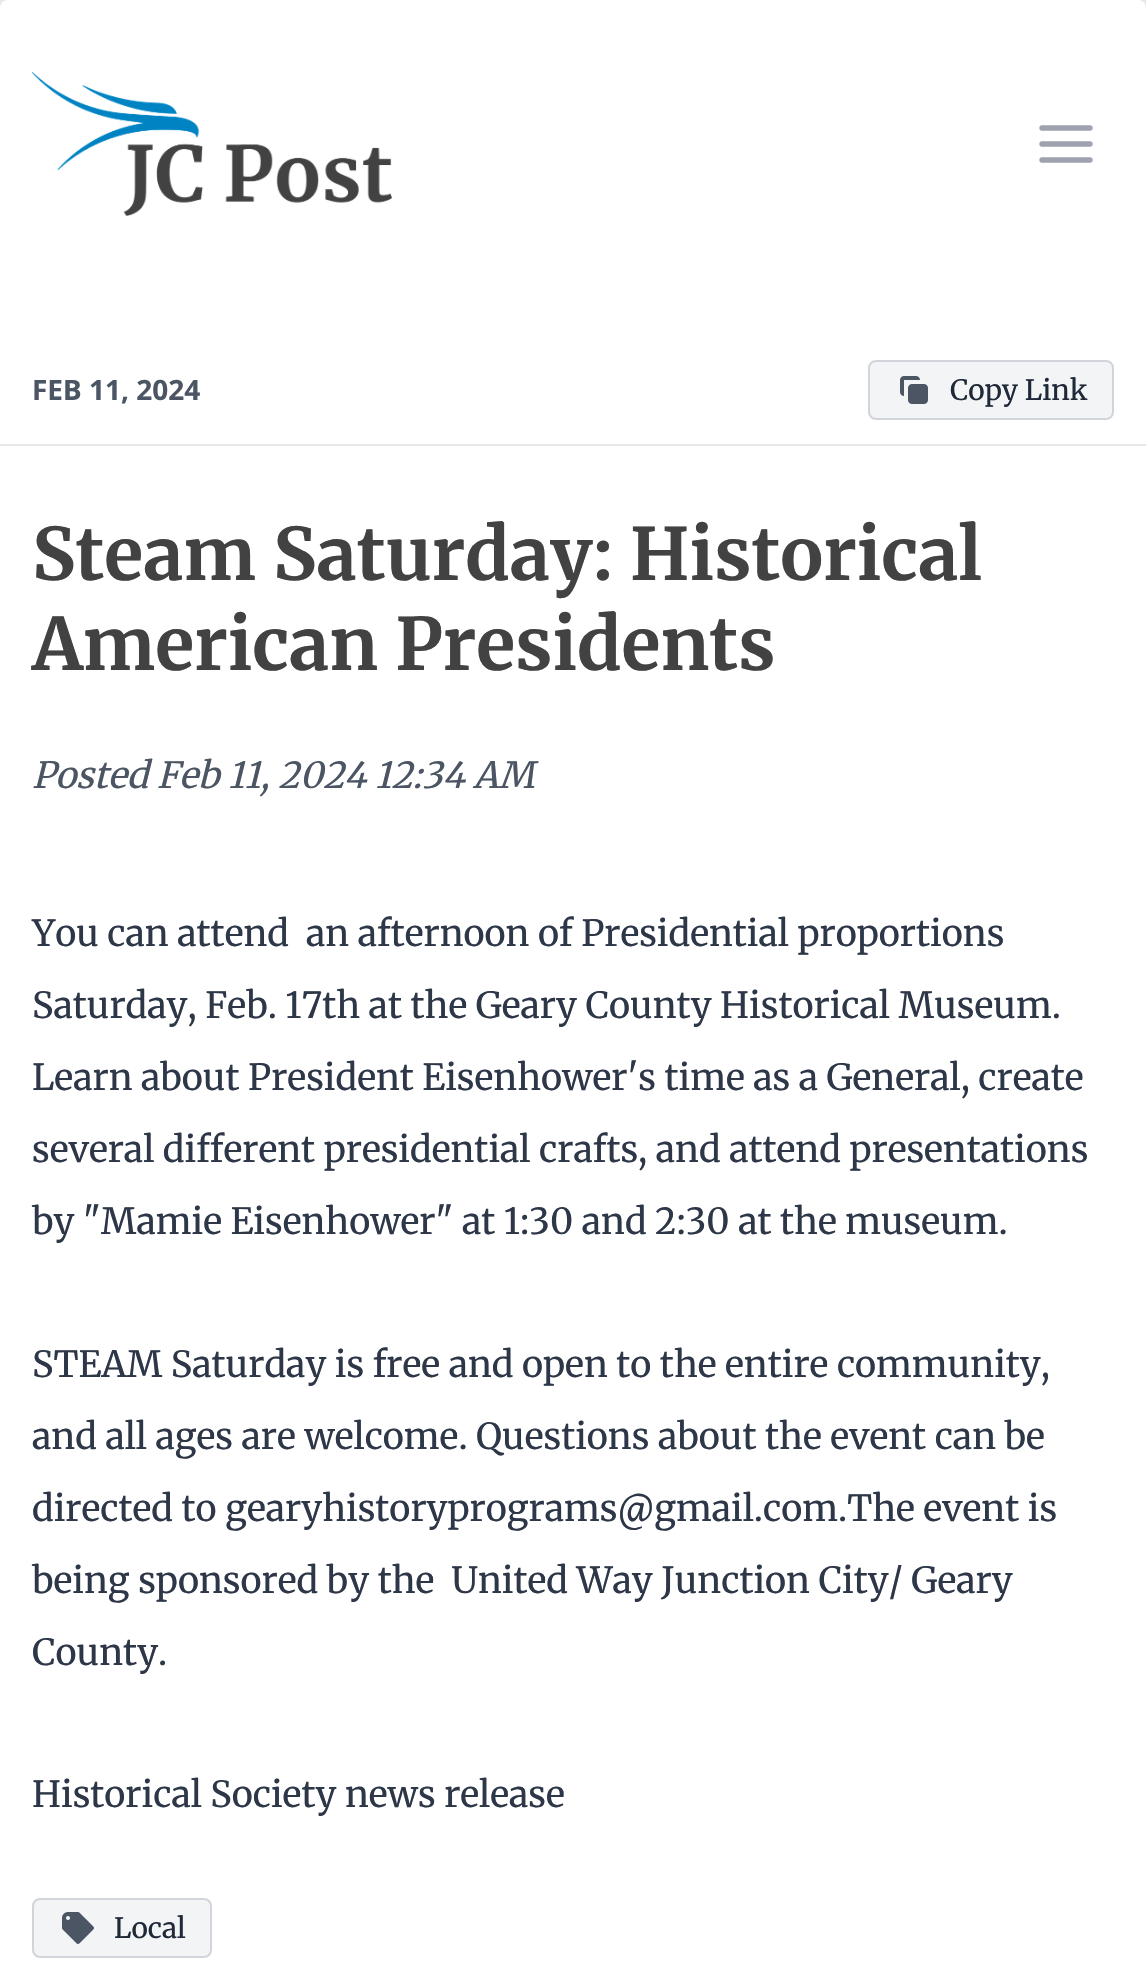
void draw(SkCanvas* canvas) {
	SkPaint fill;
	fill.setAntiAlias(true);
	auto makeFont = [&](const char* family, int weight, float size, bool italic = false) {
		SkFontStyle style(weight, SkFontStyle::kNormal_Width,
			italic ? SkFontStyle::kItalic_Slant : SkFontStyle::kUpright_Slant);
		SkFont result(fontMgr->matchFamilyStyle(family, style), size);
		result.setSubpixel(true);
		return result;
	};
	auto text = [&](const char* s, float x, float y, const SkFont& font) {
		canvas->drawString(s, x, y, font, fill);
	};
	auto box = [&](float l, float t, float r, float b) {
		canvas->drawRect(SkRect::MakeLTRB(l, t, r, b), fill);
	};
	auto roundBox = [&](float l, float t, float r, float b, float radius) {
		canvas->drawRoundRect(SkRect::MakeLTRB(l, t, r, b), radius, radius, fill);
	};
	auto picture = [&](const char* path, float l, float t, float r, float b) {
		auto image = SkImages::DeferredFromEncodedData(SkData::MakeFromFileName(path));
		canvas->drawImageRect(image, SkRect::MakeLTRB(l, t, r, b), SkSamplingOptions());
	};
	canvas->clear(0xFFE5E7EB);
	fill.setColor(0xFFFFFFFF);
	roundBox(0, 0, 1146, 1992, 8);
	picture("image0.png", 32, 72, 392, 216);
	fill.setStyle(SkPaint::kStroke_Style);
	fill.setStrokeWidth(5.3f);
	fill.setStrokeCap(SkPaint::kRound_Cap);
	fill.setStrokeJoin(SkPaint::kRound_Join);
	fill.setColor(0xFF9CA3AF);
	canvas->drawPath(SkPathBuilder().moveTo(1042, 144).lineTo(1090, 144).moveTo(1042, 128).lineTo(1090, 128).moveTo(1042, 160).lineTo(1090, 160).detach(), fill);
	fill.setStyle(SkPaint::kFill_Style);
	fill.setColor(0xFFE5E7EB);
	box(0, 444, 1146, 446);
	fill.setColor(0xFFF3F4F6);
	canvas->drawRoundRect(SkRect::MakeLTRB(869, 361, 1113, 419), 7, 7, fill);
	fill.setStyle(SkPaint::kStroke_Style);
	fill.setStrokeWidth(2);
	fill.setStrokeCap(SkPaint::kButt_Cap);
	fill.setStrokeJoin(SkPaint::kMiter_Join);
	fill.setColor(0xFFD1D5DB);
	canvas->drawRoundRect(SkRect::MakeLTRB(869, 361, 1113, 419), 7, 7, fill);
	picture("image1.png", 900, 376, 928, 404);
	fill.setStyle(SkPaint::kFill_Style);
	fill.setColor(0xFFF3F4F6);
	canvas->drawRoundRect(SkRect::MakeLTRB(33, 1899, 211, 1957), 7, 7, fill);
	fill.setStyle(SkPaint::kStroke_Style);
	fill.setColor(0xFFD1D5DB);
	canvas->drawRoundRect(SkRect::MakeLTRB(33, 1899, 211, 1957), 7, 7, fill);
	picture("image2.png", 62, 1912, 94, 1944);
	auto font1 = makeFont("Noto Sans", 700, 28);
	fill.setStyle(SkPaint::kFill_Style);
	fill.setColor(0xFF4B5563);
	text("FEB 11, 2024", 32, 400, font1);
	auto font2 = makeFont("Merriweather", 400, 28);
	fill.setColor(0xFF1F2937);
	text("Copy Link", 950, 400, font2);
	auto font3 = makeFont("Merriweather", 700, 72);
	fill.setColor(0xFF424242);
	text("Steam Saturday: Historical", 32, 580, font3);
	text("American Presidents", 32, 670, font3);
	auto font4 = makeFont("Merriweather", 400, 36, true);
	fill.setColor(0xFF4B5563);
	text("Posted Feb 11, 2024 12:34 AM", 32, 788, font4);
	auto font5 = makeFont("Merriweather", 400, 36);
	fill.setColor(0xFF2D3748);
	text("You can attend  an afternoon of Presidential proportions", 32, 946, font5);
	text("Saturday, Feb. 17th at the Geary County Historical Museum.", 32, 1018, font5);
	text("Learn about President Eisenhower's time as a General, create", 32, 1090, font5);
	text("several different presidential crafts, and attend presentations", 32, 1162, font5);
	text("by \"Mamie Eisenhower\" at 1:30 and 2:30 at the museum.", 32, 1234, font5);
	text("STEAM Saturday is free and open to the entire community,", 32, 1377, font5);
	text("and all ages are welcome. Questions about the event can be", 32, 1449, font5);
	text("directed to gearyhistoryprograms@gmail.com.The event is", 32, 1521, font5);
	text("being sponsored by the  United Way Junction City/ Geary", 32, 1593, font5);
	text("County.", 32, 1665, font5);
	text("Historical Society news release", 32, 1807, font5);
	fill.setColor(0xFF1F2937);
	text("Local", 114, 1938, font2);
}
